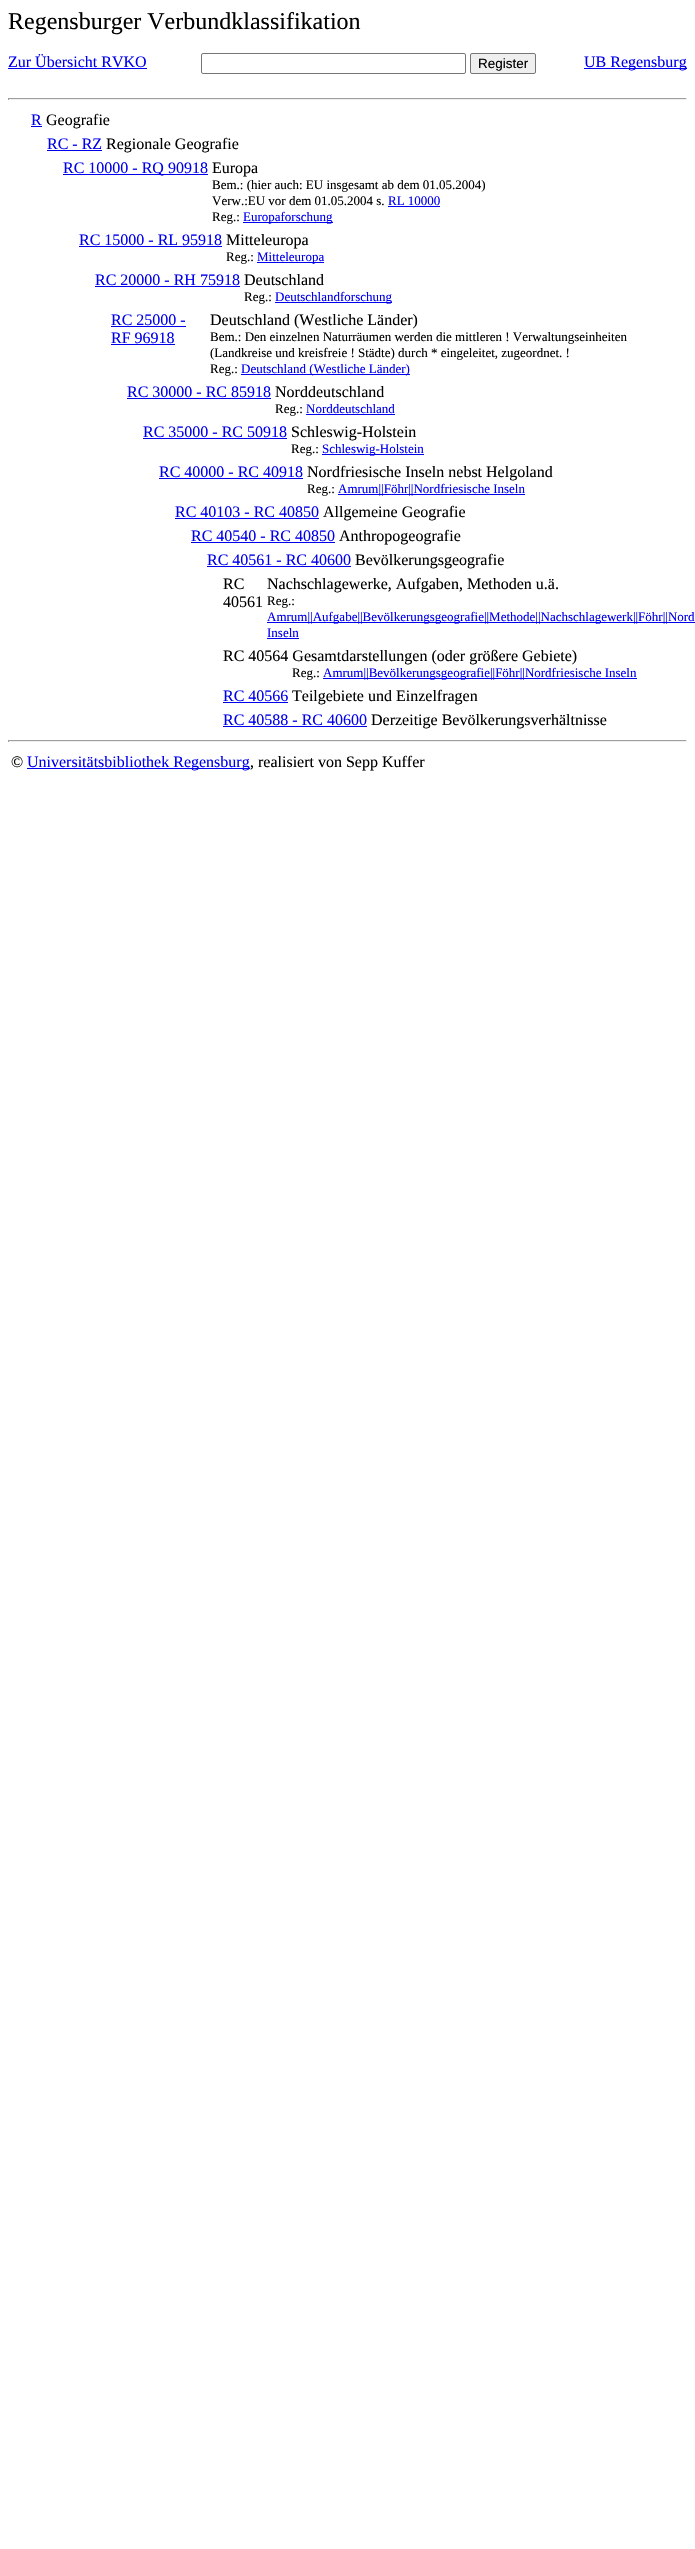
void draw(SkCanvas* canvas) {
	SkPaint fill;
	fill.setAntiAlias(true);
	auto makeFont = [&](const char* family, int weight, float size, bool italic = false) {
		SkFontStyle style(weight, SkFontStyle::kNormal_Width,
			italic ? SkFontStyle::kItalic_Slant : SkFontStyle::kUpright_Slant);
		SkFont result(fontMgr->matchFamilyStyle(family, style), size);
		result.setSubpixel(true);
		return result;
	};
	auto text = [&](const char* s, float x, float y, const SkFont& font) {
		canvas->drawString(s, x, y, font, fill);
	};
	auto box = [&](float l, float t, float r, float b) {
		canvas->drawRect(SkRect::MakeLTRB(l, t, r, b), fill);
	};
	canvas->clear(0xFFFFFFFF);
	fill.setColor(0xFF0000EE);
	box(8, 68, 147, 69);
	fill.setStyle(SkPaint::kStroke_Style);
	fill.setStrokeWidth(1);
	fill.setColor(0xFF767676);
	canvas->drawRoundRect(SkRect::MakeLTRB(201.5f, 53.5f, 465.5f, 73.5f), 1.5f, 1.5f, fill);
	fill.setStyle(SkPaint::kFill_Style);
	fill.setColor(0xFFEFEFEF);
	canvas->drawRoundRect(SkRect::MakeLTRB(470.5f, 53.5f, 535.5f, 73.5f), 1.5f, 1.5f, fill);
	fill.setStyle(SkPaint::kStroke_Style);
	fill.setColor(0xFF767676);
	canvas->drawRoundRect(SkRect::MakeLTRB(470.5f, 53.5f, 535.5f, 73.5f), 1.5f, 1.5f, fill);
	fill.setStyle(SkPaint::kFill_Style);
	fill.setColor(0xFF0000EE);
	box(584, 68, 687, 69);
	fill.setColor(0xFF9F9F9F);
	box(8, 98, 687, 99);
	fill.setColor(0xFFEEEEEE);
	box(686, 98, 687, 100);
	box(8, 99, 687, 100);
	fill.setColor(0xFF9F9F9F);
	box(8, 98, 9, 100);
	fill.setColor(0xFF0000EE);
	box(31, 126, 42, 127);
	box(47, 150, 102, 151);
	box(63, 174, 208, 175);
	box(388, 206, 440, 207);
	box(243, 222, 333, 223);
	box(79, 246, 222, 247);
	box(257, 262, 324, 263);
	box(95, 286, 240, 287);
	box(275, 302, 392, 303);
	box(111, 326, 186, 327);
	box(111, 344, 175, 345);
	box(241, 374, 410, 375);
	box(127, 398, 271, 399);
	box(306, 414, 395, 415);
	box(143, 438, 287, 439);
	box(322, 454, 424, 455);
	box(159, 478, 303, 479);
	box(338, 494, 525, 495);
	box(175, 518, 319, 519);
	box(191, 542, 335, 543);
	box(207, 566, 351, 567);
	box(267, 622, 695, 623);
	box(267, 638, 299, 639);
	box(323, 678, 637, 679);
	box(223, 702, 288, 703);
	box(223, 726, 367, 727);
	fill.setColor(0xFF9F9F9F);
	box(8, 740, 687, 741);
	fill.setColor(0xFFEEEEEE);
	box(686, 740, 687, 742);
	box(8, 741, 687, 742);
	fill.setColor(0xFF9F9F9F);
	box(8, 740, 9, 742);
	fill.setColor(0xFF0000EE);
	box(27, 768, 250, 769);
	auto font1 = makeFont("Liberation Serif", 400, 24);
	fill.setColor(0xFF000000);
	text("Regensburger Verbundklassifikation", 8, 29, font1);
	auto font2 = makeFont("Liberation Serif", 400, 16);
	fill.setColor(0xFF0000EE);
	text("Zur Übersicht RVKO", 8, 67, font2);
	auto font3 = makeFont("Liberation Sans", 400, 13.5f);
	fill.setColor(0xFF000000);
	text("Register", 478, 68, font3);
	fill.setColor(0xFF0000EE);
	text("UB Regensburg", 584, 67, font2);
	text("R", 31, 125, font2);
	fill.setColor(0xFF000000);
	text("Geografie", 46, 125, font2);
	fill.setColor(0xFF0000EE);
	text("RC - RZ", 47, 149, font2);
	fill.setColor(0xFF000000);
	text("Regionale Geografie", 106, 149, font2);
	fill.setColor(0xFF0000EE);
	text("RC 10000 - RQ 90918", 63, 173, font2);
	fill.setColor(0xFF000000);
	text("Europa", 212, 173, font2);
	auto font4 = makeFont("Liberation Serif", 400, 13);
	text("Bem.: (hier auch: EU insgesamt ab dem 01.05.2004)", 212, 189, font4);
	text("Verw.:EU vor dem 01.05.2004 s.", 212, 205, font4);
	fill.setColor(0xFF0000EE);
	text("RL 10000", 388, 205, font4);
	fill.setColor(0xFF000000);
	text("Reg.:", 212, 221, font4);
	fill.setColor(0xFF0000EE);
	text("Europaforschung", 243, 221, font4);
	text("RC 15000 - RL 95918", 79, 245, font2);
	fill.setColor(0xFF000000);
	text("Mitteleuropa", 226, 245, font2);
	text("Reg.:", 226, 261, font4);
	fill.setColor(0xFF0000EE);
	text("Mitteleuropa", 257, 261, font4);
	text("RC 20000 - RH 75918", 95, 285, font2);
	fill.setColor(0xFF000000);
	text("Deutschland", 244, 285, font2);
	text("Reg.:", 244, 301, font4);
	fill.setColor(0xFF0000EE);
	text("Deutschlandforschung", 275, 301, font4);
	text("RC 25000 -", 111, 325, font2);
	text("RF 96918", 111, 343, font2);
	fill.setColor(0xFF000000);
	text("Deutschland (Westliche Länder)", 210, 325, font2);
	text("Bem.: Den einzelnen Naturräumen werden die mittleren ! Verwaltungseinheiten", 210, 341, font4);
	text("(Landkreise und kreisfreie ! Städte) durch * eingeleitet, zugeordnet. !", 210, 357, font4);
	text("Reg.:", 210, 373, font4);
	fill.setColor(0xFF0000EE);
	text("Deutschland (Westliche Länder)", 241, 373, font4);
	text("RC 30000 - RC 85918", 127, 397, font2);
	fill.setColor(0xFF000000);
	text("Norddeutschland", 275, 397, font2);
	text("Reg.:", 275, 413, font4);
	fill.setColor(0xFF0000EE);
	text("Norddeutschland", 306, 413, font4);
	text("RC 35000 - RC 50918", 143, 437, font2);
	fill.setColor(0xFF000000);
	text("Schleswig-Holstein", 291, 437, font2);
	text("Reg.:", 291, 453, font4);
	fill.setColor(0xFF0000EE);
	text("Schleswig-Holstein", 322, 453, font4);
	text("RC 40000 - RC 40918", 159, 477, font2);
	fill.setColor(0xFF000000);
	text("Nordfriesische Inseln nebst Helgoland", 307, 477, font2);
	text("Reg.:", 307, 493, font4);
	fill.setColor(0xFF0000EE);
	text("Amrum||Föhr||Nordfriesische Inseln", 338, 493, font4);
	text("RC 40103 - RC 40850", 175, 517, font2);
	fill.setColor(0xFF000000);
	text("Allgemeine Geografie", 323, 517, font2);
	fill.setColor(0xFF0000EE);
	text("RC 40540 - RC 40850", 191, 541, font2);
	fill.setColor(0xFF000000);
	text("Anthropogeografie", 339, 541, font2);
	fill.setColor(0xFF0000EE);
	text("RC 40561 - RC 40600", 207, 565, font2);
	fill.setColor(0xFF000000);
	text("Bevölkerungsgeografie", 355, 565, font2);
	text("RC", 223, 589, font2);
	text("40561", 223, 607, font2);
	text("Nachschlagewerke, Aufgaben, Methoden u.ä.", 267, 589, font2);
	text("Reg.:", 267, 605, font4);
	fill.setColor(0xFF0000EE);
	text("Amrum||Aufgabe||Bevölkerungsgeografie||Methode||Nachschlagewerk||Föhr||Nord", 267, 621, font4);
	text("Inseln", 267, 637, font4);
	fill.setColor(0xFF000000);
	text("RC 40564 Gesamtdarstellungen (oder größere Gebiete)", 223, 661, font2);
	text("Reg.:", 292, 677, font4);
	fill.setColor(0xFF0000EE);
	text("Amrum||Bevölkerungsgeografie||Föhr||Nordfriesische Inseln", 323, 677, font4);
	text("RC 40566", 223, 701, font2);
	fill.setColor(0xFF000000);
	text("Teilgebiete und Einzelfragen", 292, 701, font2);
	fill.setColor(0xFF0000EE);
	text("RC 40588 - RC 40600", 223, 725, font2);
	fill.setColor(0xFF000000);
	text("Derzeitige Bevölkerungsverhältnisse", 371, 725, font2);
	text("©", 11, 767, font2);
	fill.setColor(0xFF0000EE);
	text("Universitätsbibliothek Regensburg", 27, 767, font2);
	fill.setColor(0xFF000000);
	text(", realisiert von Sepp Kuffer", 250, 767, font2);
}
